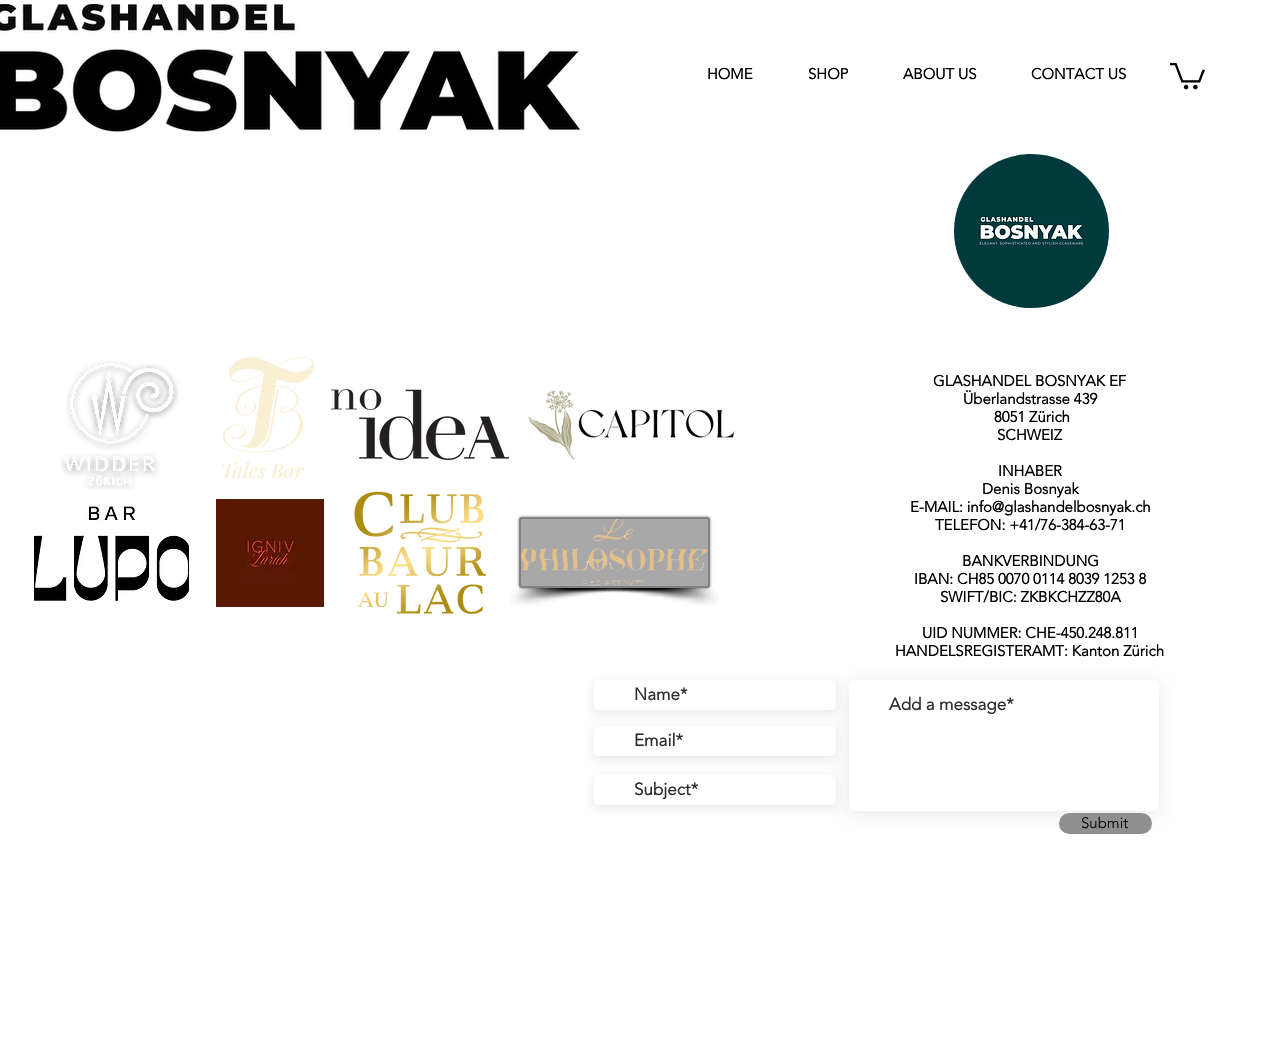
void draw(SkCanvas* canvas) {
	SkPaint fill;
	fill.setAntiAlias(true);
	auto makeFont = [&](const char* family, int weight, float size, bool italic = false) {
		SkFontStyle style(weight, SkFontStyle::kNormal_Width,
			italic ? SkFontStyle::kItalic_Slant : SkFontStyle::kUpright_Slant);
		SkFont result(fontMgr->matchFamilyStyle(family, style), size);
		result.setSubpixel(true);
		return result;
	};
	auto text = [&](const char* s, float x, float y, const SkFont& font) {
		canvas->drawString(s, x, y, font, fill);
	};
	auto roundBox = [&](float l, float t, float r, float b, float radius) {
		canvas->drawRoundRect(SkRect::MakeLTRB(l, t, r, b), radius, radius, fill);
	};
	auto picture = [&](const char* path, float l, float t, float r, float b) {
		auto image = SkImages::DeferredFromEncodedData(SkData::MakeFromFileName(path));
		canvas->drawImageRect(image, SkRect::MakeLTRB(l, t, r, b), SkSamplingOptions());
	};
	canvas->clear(0xFFFFFFFF);
	picture("image0.png", 0, 4, 580, 132);
	picture("image1.png", 1170, 62, 1205, 90);
	picture("image2.png", 954, 154, 1109, 308);
	picture("image3.png", 60, 360, 179, 490);
	picture("image4.png", 222, 357, 315, 479);
	picture("image5.png", 331, 389, 509, 460);
	picture("image6.png", 528, 390, 735, 460);
	picture("image7.png", 34, 505, 189, 601);
	picture("image8.png", 216, 499, 324, 607);
	picture("image9.png", 354, 491, 487, 615);
	canvas->save();
	canvas->clipPath(SkPathBuilder(SkPathFillType::kEvenOdd).moveTo(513, 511).lineTo(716, 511).lineTo(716, 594).lineTo(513, 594).close().moveTo(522, 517).lineTo(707, 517).cubicTo(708.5f, 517, 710, 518.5f, 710, 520).lineTo(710, 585).cubicTo(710, 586.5f, 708.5f, 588, 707, 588).lineTo(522, 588).cubicTo(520.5f, 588, 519, 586.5f, 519, 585).lineTo(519, 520).cubicTo(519, 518.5f, 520.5f, 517, 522, 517).close().detach(), true);
	fill.setColor(0x80000000);
	fill.setMaskFilter(SkMaskFilter::MakeBlur(kNormal_SkBlurStyle, 1.5f));
	canvas->drawRoundRect(SkRect::MakeLTRB(519, 517, 710, 588), 3, 3, fill);
	fill.setMaskFilter(nullptr);
	canvas->restore();
	fill.setColor(0x8C606060);
	roundBox(519, 517, 710, 588, 3);
	fill.setStyle(SkPaint::kStroke_Style);
	fill.setStrokeWidth(2);
	canvas->drawRoundRect(SkRect::MakeLTRB(520, 518, 709, 587), 2, 2, fill);
	picture("image10.png", 521, 519, 708, 586);
	picture("image11.png", 510, 588, 664, 606);
	picture("image12.png", 591, 588, 719, 606);
	canvas->save();
	canvas->clipPath(SkPathBuilder(SkPathFillType::kEvenOdd).moveTo(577, 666).lineTo(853, 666).lineTo(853, 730).lineTo(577, 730).close().moveTo(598, 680).lineTo(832, 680).cubicTo(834, 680, 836, 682, 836, 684).lineTo(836, 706).cubicTo(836, 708, 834, 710, 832, 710).lineTo(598, 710).cubicTo(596, 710, 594, 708, 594, 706).lineTo(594, 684).cubicTo(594, 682, 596, 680, 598, 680).close().detach(), true);
	fill.setStyle(SkPaint::kFill_Style);
	fill.setColor(0x14000000);
	fill.setMaskFilter(SkMaskFilter::MakeBlur(kNormal_SkBlurStyle, 5));
	canvas->drawRoundRect(SkRect::MakeLTRB(593, 682, 837, 714), 5, 5, fill);
	fill.setMaskFilter(nullptr);
	canvas->restore();
	fill.setMaskFilter(SkMaskFilter::MakeBlur(kNormal_SkBlurStyle, 9.5f));
	canvas->drawRoundRect(SkRect::MakeLTRB(848, 682, 1160, 815), 7, 7, fill);
	fill.setMaskFilter(nullptr);
	canvas->save();
	canvas->clipPath(SkPathBuilder(SkPathFillType::kEvenOdd).moveTo(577, 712).lineTo(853, 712).lineTo(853, 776).lineTo(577, 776).close().moveTo(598, 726).lineTo(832, 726).cubicTo(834, 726, 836, 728, 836, 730).lineTo(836, 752).cubicTo(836, 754, 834, 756, 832, 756).lineTo(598, 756).cubicTo(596, 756, 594, 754, 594, 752).lineTo(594, 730).cubicTo(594, 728, 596, 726, 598, 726).close().detach(), true);
	fill.setMaskFilter(SkMaskFilter::MakeBlur(kNormal_SkBlurStyle, 5));
	canvas->drawRoundRect(SkRect::MakeLTRB(593, 728, 837, 760), 5, 5, fill);
	fill.setMaskFilter(nullptr);
	canvas->restore();
	canvas->save();
	canvas->clipPath(SkPathBuilder(SkPathFillType::kEvenOdd).moveTo(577, 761).lineTo(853, 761).lineTo(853, 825).lineTo(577, 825).close().moveTo(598, 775).lineTo(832, 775).cubicTo(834, 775, 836, 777, 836, 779).lineTo(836, 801).cubicTo(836, 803, 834, 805, 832, 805).lineTo(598, 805).cubicTo(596, 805, 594, 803, 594, 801).lineTo(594, 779).cubicTo(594, 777, 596, 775, 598, 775).close().detach(), true);
	fill.setMaskFilter(SkMaskFilter::MakeBlur(kNormal_SkBlurStyle, 5));
	canvas->drawRoundRect(SkRect::MakeLTRB(593, 777, 837, 809), 5, 5, fill);
	fill.setMaskFilter(nullptr);
	canvas->restore();
	fill.setColor(0xFFFFFFFF);
	roundBox(849, 680, 1159, 811, 6);
	fill.setColor(0xFF8F8F8F);
	roundBox(1059, 813, 1152, 834, 10.5f);
	auto font1 = makeFont("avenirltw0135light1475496", 700, 15);
	fill.setColor(0xFF000000);
	text("HOME", 707, 79, font1);
	text("SHOP", 808, 79, font1);
	text("ABOUT US", 903, 79, font1);
	text("CONTACT US", 1031, 79, font1);
	text("GLASHANDEL BOSNYAK EF", 933, 386, font1);
	text("Überlandstrasse 439", 963, 404, font1);
	text("8051 Zürich", 994, 422, font1);
	text("SCHWEIZ", 997, 440, font1);
	text("INHABER", 998, 476, font1);
	text("Denis Bosnyak", 982, 494, font1);
	text("E-MAIL: info@glashandelbosnyak.ch", 910, 512, font1);
	text("TELEFON: +41/76-384-63-71", 935, 530, font1);
	text("BANKVERBINDUNG", 962, 566, font1);
	text("IBAN: CH85 0070 0114 8039 1253 8", 914, 584, font1);
	text("SWIFT/BIC: ZKBKCHZZ80A", 940, 602, font1);
	text("UID NUMMER: CHE-450.248.811", 922, 638, font1);
	text("HANDELSREGISTERAMT: Kanton Zürich", 895, 656, font1);
	auto font2 = makeFont("avenirltw0135light1475496", 700, 17);
	fill.setColor(0xFF302D2B);
	text("Name*", 634, 700, font2);
	text("Add a message*", 889, 710, font2);
	text("Email*", 634, 746, font2);
	text("Subject*", 634, 795, font2);
	auto font3 = makeFont("avenirltw0135light1475496", 300, 15);
	fill.setColor(0xFF000000);
	text("Submit", 1081, 828, font3);
}
